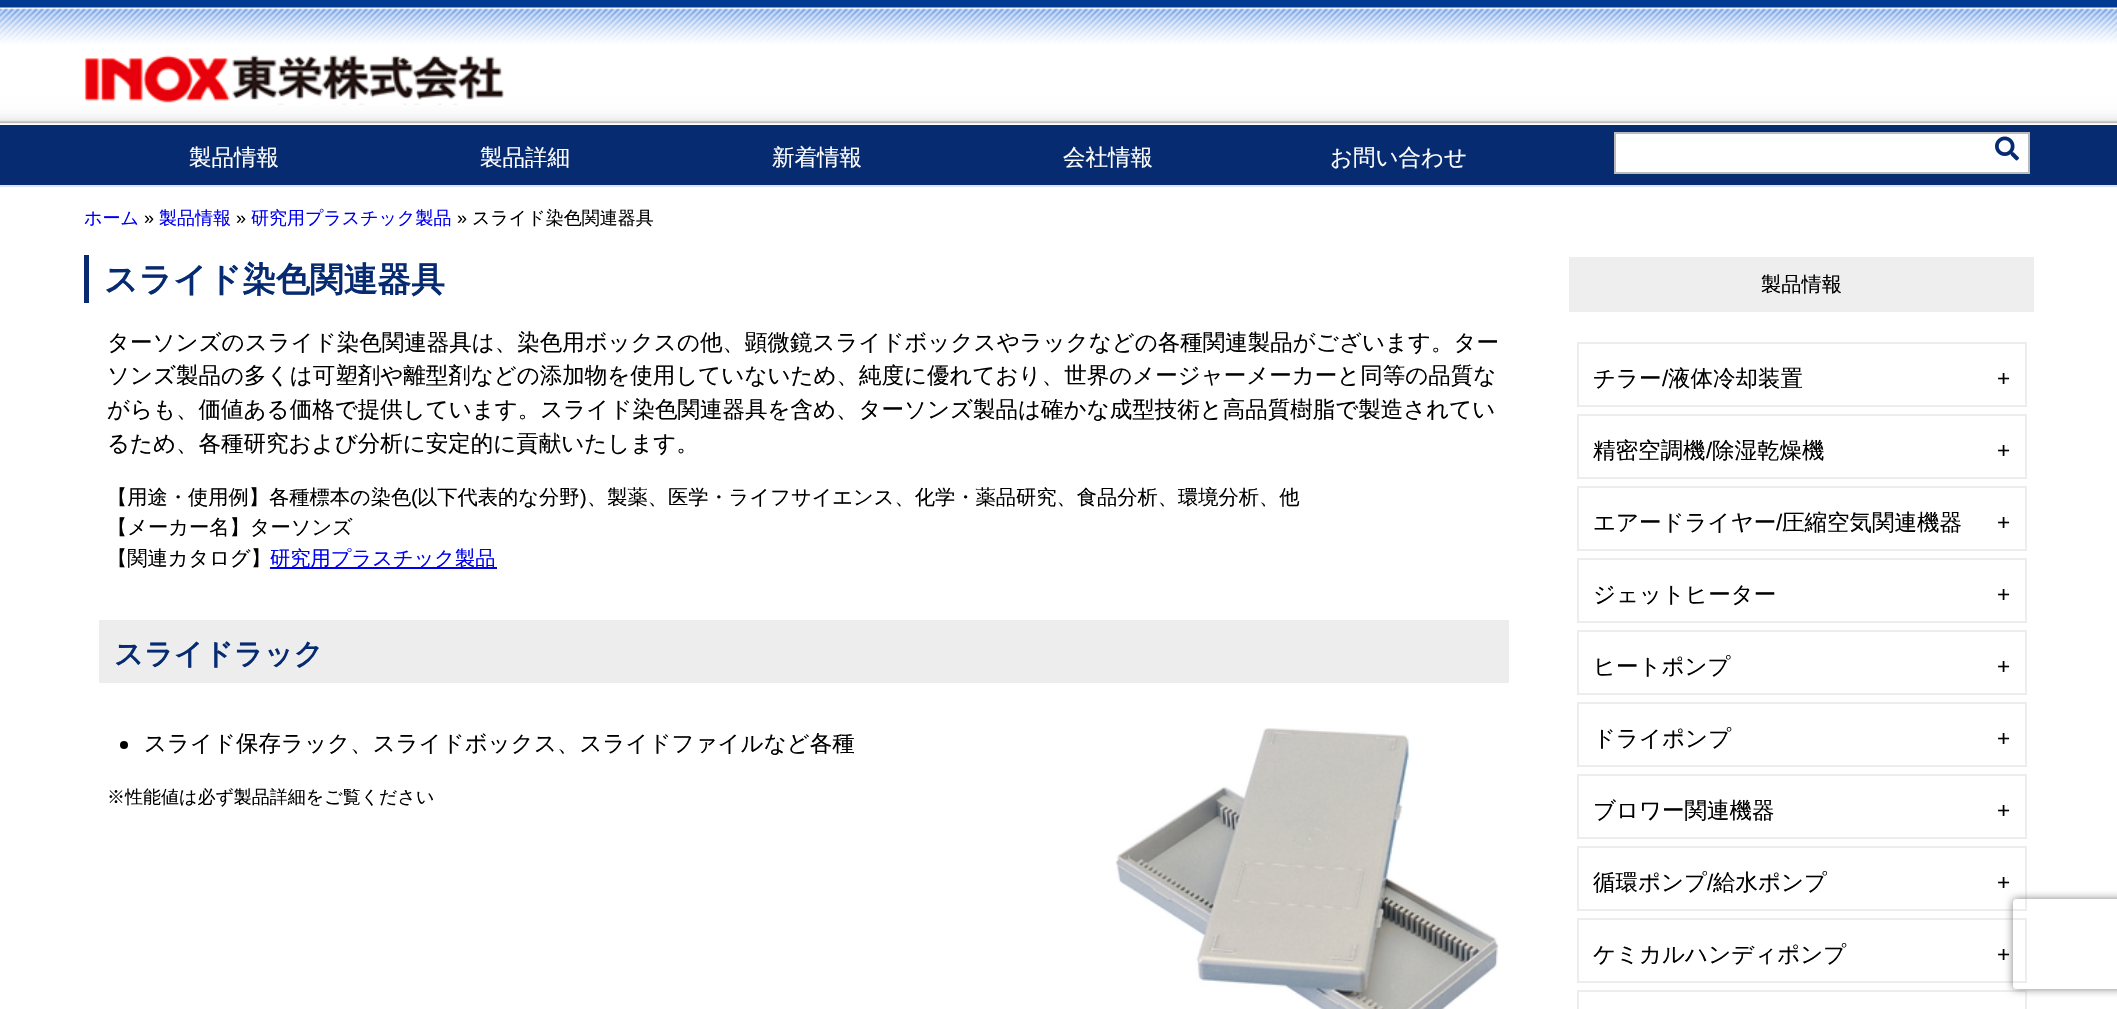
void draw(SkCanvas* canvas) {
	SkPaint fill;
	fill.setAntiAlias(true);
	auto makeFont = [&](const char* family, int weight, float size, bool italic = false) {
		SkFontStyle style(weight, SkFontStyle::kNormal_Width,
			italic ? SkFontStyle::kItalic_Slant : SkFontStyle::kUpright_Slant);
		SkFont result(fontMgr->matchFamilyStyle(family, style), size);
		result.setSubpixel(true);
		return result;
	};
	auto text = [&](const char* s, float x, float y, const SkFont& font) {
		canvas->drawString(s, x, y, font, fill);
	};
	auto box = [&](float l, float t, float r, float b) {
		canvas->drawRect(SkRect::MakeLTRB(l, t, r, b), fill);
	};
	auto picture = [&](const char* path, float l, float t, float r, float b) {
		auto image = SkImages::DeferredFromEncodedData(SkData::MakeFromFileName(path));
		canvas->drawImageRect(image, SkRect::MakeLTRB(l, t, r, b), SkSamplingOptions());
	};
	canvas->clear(0xFFFFFFFF);
	picture("image0.png", 0, 0, 2117, 124);
	picture("image1.png", 84, 55, 504, 105);
	fill.setColor(0xFF062B71);
	box(0, 125, 2117, 185);
	fill.setColor(0xFFDBE6FD);
	box(0, 185, 2117, 187);
	fill.setColor(0xFFFFFFFF);
	canvas->drawRect(SkRect::MakeLTRB(1615, 133, 2029, 173), fill);
	fill.setStyle(SkPaint::kStroke_Style);
	fill.setStrokeWidth(2);
	fill.setColor(0xFFBBBBBB);
	canvas->drawRect(SkRect::MakeLTRB(1615, 133, 2029, 173), fill);
	picture("image2.png", 1995, 136, 2019, 161);
	fill.setStyle(SkPaint::kFill_Style);
	fill.setColor(0xFF062B71);
	box(84, 255, 89, 303);
	fill.setColor(0xFF0000EE);
	box(270, 567, 497, 569);
	fill.setColor(0xFFEDEDED);
	box(99, 620, 1509, 683);
	fill.setColor(0xFF000000);
	canvas->drawCircle(124, 745, 4, fill);
	picture("image3.png", 1115, 728, 1499, 1009);
	fill.setColor(0xFFEEEEEE);
	box(1569, 257, 2034, 312);
	fill.setStyle(SkPaint::kStroke_Style);
	fill.setColor(0xFFEDEDED);
	canvas->drawRect(SkRect::MakeLTRB(1578, 343, 2026, 406), fill);
	canvas->drawRect(SkRect::MakeLTRB(1578, 415, 2026, 478), fill);
	canvas->drawRect(SkRect::MakeLTRB(1578, 487, 2026, 550), fill);
	canvas->drawRect(SkRect::MakeLTRB(1578, 559, 2026, 622), fill);
	canvas->drawRect(SkRect::MakeLTRB(1578, 631, 2026, 694), fill);
	canvas->drawRect(SkRect::MakeLTRB(1578, 703, 2026, 766), fill);
	canvas->drawRect(SkRect::MakeLTRB(1578, 775, 2026, 838), fill);
	canvas->drawRect(SkRect::MakeLTRB(1578, 847, 2026, 910), fill);
	canvas->drawRect(SkRect::MakeLTRB(1578, 919, 2026, 982), fill);
	canvas->drawRect(SkRect::MakeLTRB(1578, 991, 2026, 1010), fill);
	canvas->save();
	canvas->clipPath(SkPathBuilder(SkPathFillType::kEvenOdd).moveTo(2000, 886).lineTo(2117, 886).lineTo(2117, 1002).lineTo(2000, 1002).close().moveTo(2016, 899).lineTo(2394, 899).cubicTo(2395.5f, 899, 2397, 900.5f, 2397, 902).lineTo(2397, 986).cubicTo(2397, 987.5f, 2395.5f, 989, 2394, 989).lineTo(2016, 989).cubicTo(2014.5f, 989, 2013, 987.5f, 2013, 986).lineTo(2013, 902).cubicTo(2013, 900.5f, 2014.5f, 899, 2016, 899).close().detach(), true);
	fill.setStyle(SkPaint::kFill_Style);
	fill.setColor(0xFF808080);
	fill.setMaskFilter(SkMaskFilter::MakeBlur(kNormal_SkBlurStyle, 4));
	canvas->drawRoundRect(SkRect::MakeLTRB(2013, 899, 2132, 989), 3, 3, fill);
	fill.setMaskFilter(nullptr);
	canvas->restore();
	auto font1 = makeFont("WenQuanYi Zen Hei", 500, 22.5f);
	fill.setColor(0xFFFFFFFF);
	text("製品情報", 189, 165, font1);
	text("製品詳細", 480, 165, font1);
	text("新着情報", 772, 165, font1);
	text("会社情報", 1063, 165, font1);
	text("お問い合わせ", 1330, 165, font1);
	auto font2 = makeFont("WenQuanYi Zen Hei", 500, 18);
	fill.setColor(0xFF0000EE);
	text("ホーム", 84, 224, font2);
	auto font3 = makeFont("Liberation Sans", 400, 18);
	fill.setColor(0xFF000000);
	text("»", 144, 224, font3);
	fill.setColor(0xFF0000EE);
	text("製品情報", 159, 224, font2);
	fill.setColor(0xFF000000);
	text("»", 236, 224, font3);
	fill.setColor(0xFF0000EE);
	text("研究用プラスチック製品", 251, 224, font2);
	fill.setColor(0xFF000000);
	text("»", 457, 224, font3);
	text("スライド染色関連器具", 472, 224, font2);
	auto font4 = makeFont("WenQuanYi Zen Hei", 700, 33.75f);
	fill.setColor(0xFF062B71);
	text("スライド染色関連器具", 104, 291, font4);
	fill.setColor(0xFF000000);
	text("ターソンズのスライド染色関連器具は、染色用ボックスの他、顕微鏡スライドボックスやラックなどの各種関連製品がございます。ター", 107, 350, font1);
	text("ソンズ製品の多くは可塑剤や離型剤などの添加物を使用していないため、純度に優れており、世界のメージャーメーカーと同等の品質な", 107, 383, font1);
	text("がらも、価値ある価格で提供しています。スライド染色関連器具を含め、ターソンズ製品は確かな成型技術と高品質樹脂で製造されてい", 107, 417, font1);
	text("るため、各種研究および分析に安定的に貢献いたします。", 107, 451, font1);
	auto font5 = makeFont("WenQuanYi Zen Hei", 500, 20.25f);
	text("【用途・使用例】各種標本の染色", 107, 504, font5);
	auto font6 = makeFont("Liberation Sans", 400, 20.25f);
	text("(", 411, 504, font6);
	text("以下代表的な分野", 417, 504, font5);
	text(")", 580, 504, font6);
	text("、製薬、医学・ライフサイエンス、化学・薬品研究、食品分析、環境分析、他", 587, 504, font5);
	text("【メーカー名】ターソンズ", 107, 534, font5);
	text("【関連カタログ】", 107, 565, font5);
	fill.setColor(0xFF0000EE);
	text("研究用プラスチック製品", 270, 565, font5);
	auto font7 = makeFont("WenQuanYi Zen Hei", 700, 29.25f);
	fill.setColor(0xFF062B71);
	text("スライドラック", 114, 664, font7);
	fill.setColor(0xFF000000);
	text("スライド保存ラック、スライドボックス、スライドファイルなど各種", 144, 751, font1);
	text("※性能値は必ず製品詳細をご覧ください", 107, 803, font2);
	text("製品情報", 1761, 291, font5);
	text("チラー", 1593, 386, font1);
	auto font8 = makeFont("Liberation Sans", 400, 22.5f);
	text("/", 1662, 386, font8);
	text("液体冷却装置", 1668, 386, font1);
	text("+", 1997, 386, font8);
	text("精密空調機", 1593, 458, font1);
	text("/", 1706, 458, font8);
	text("除湿乾燥機", 1712, 458, font1);
	text("+", 1997, 458, font8);
	text("エアードライヤー", 1593, 530, font1);
	text("/", 1776, 530, font8);
	text("圧縮空気関連機器", 1782, 530, font1);
	text("+", 1997, 530, font8);
	text("ジェットヒーター", 1593, 602, font1);
	text("+", 1997, 602, font8);
	text("ヒートポンプ", 1593, 674, font1);
	text("+", 1997, 674, font8);
	text("ドライポンプ", 1593, 746, font1);
	text("+", 1997, 746, font8);
	text("ブロワー関連機器", 1593, 818, font1);
	text("+", 1997, 818, font8);
	text("循環ポンプ", 1593, 890, font1);
	text("/", 1707, 890, font8);
	text("給水ポンプ", 1713, 890, font1);
	text("+", 1997, 890, font8);
	text("ケミカルハンディポンプ", 1593, 962, font1);
	text("+", 1997, 962, font8);
}
